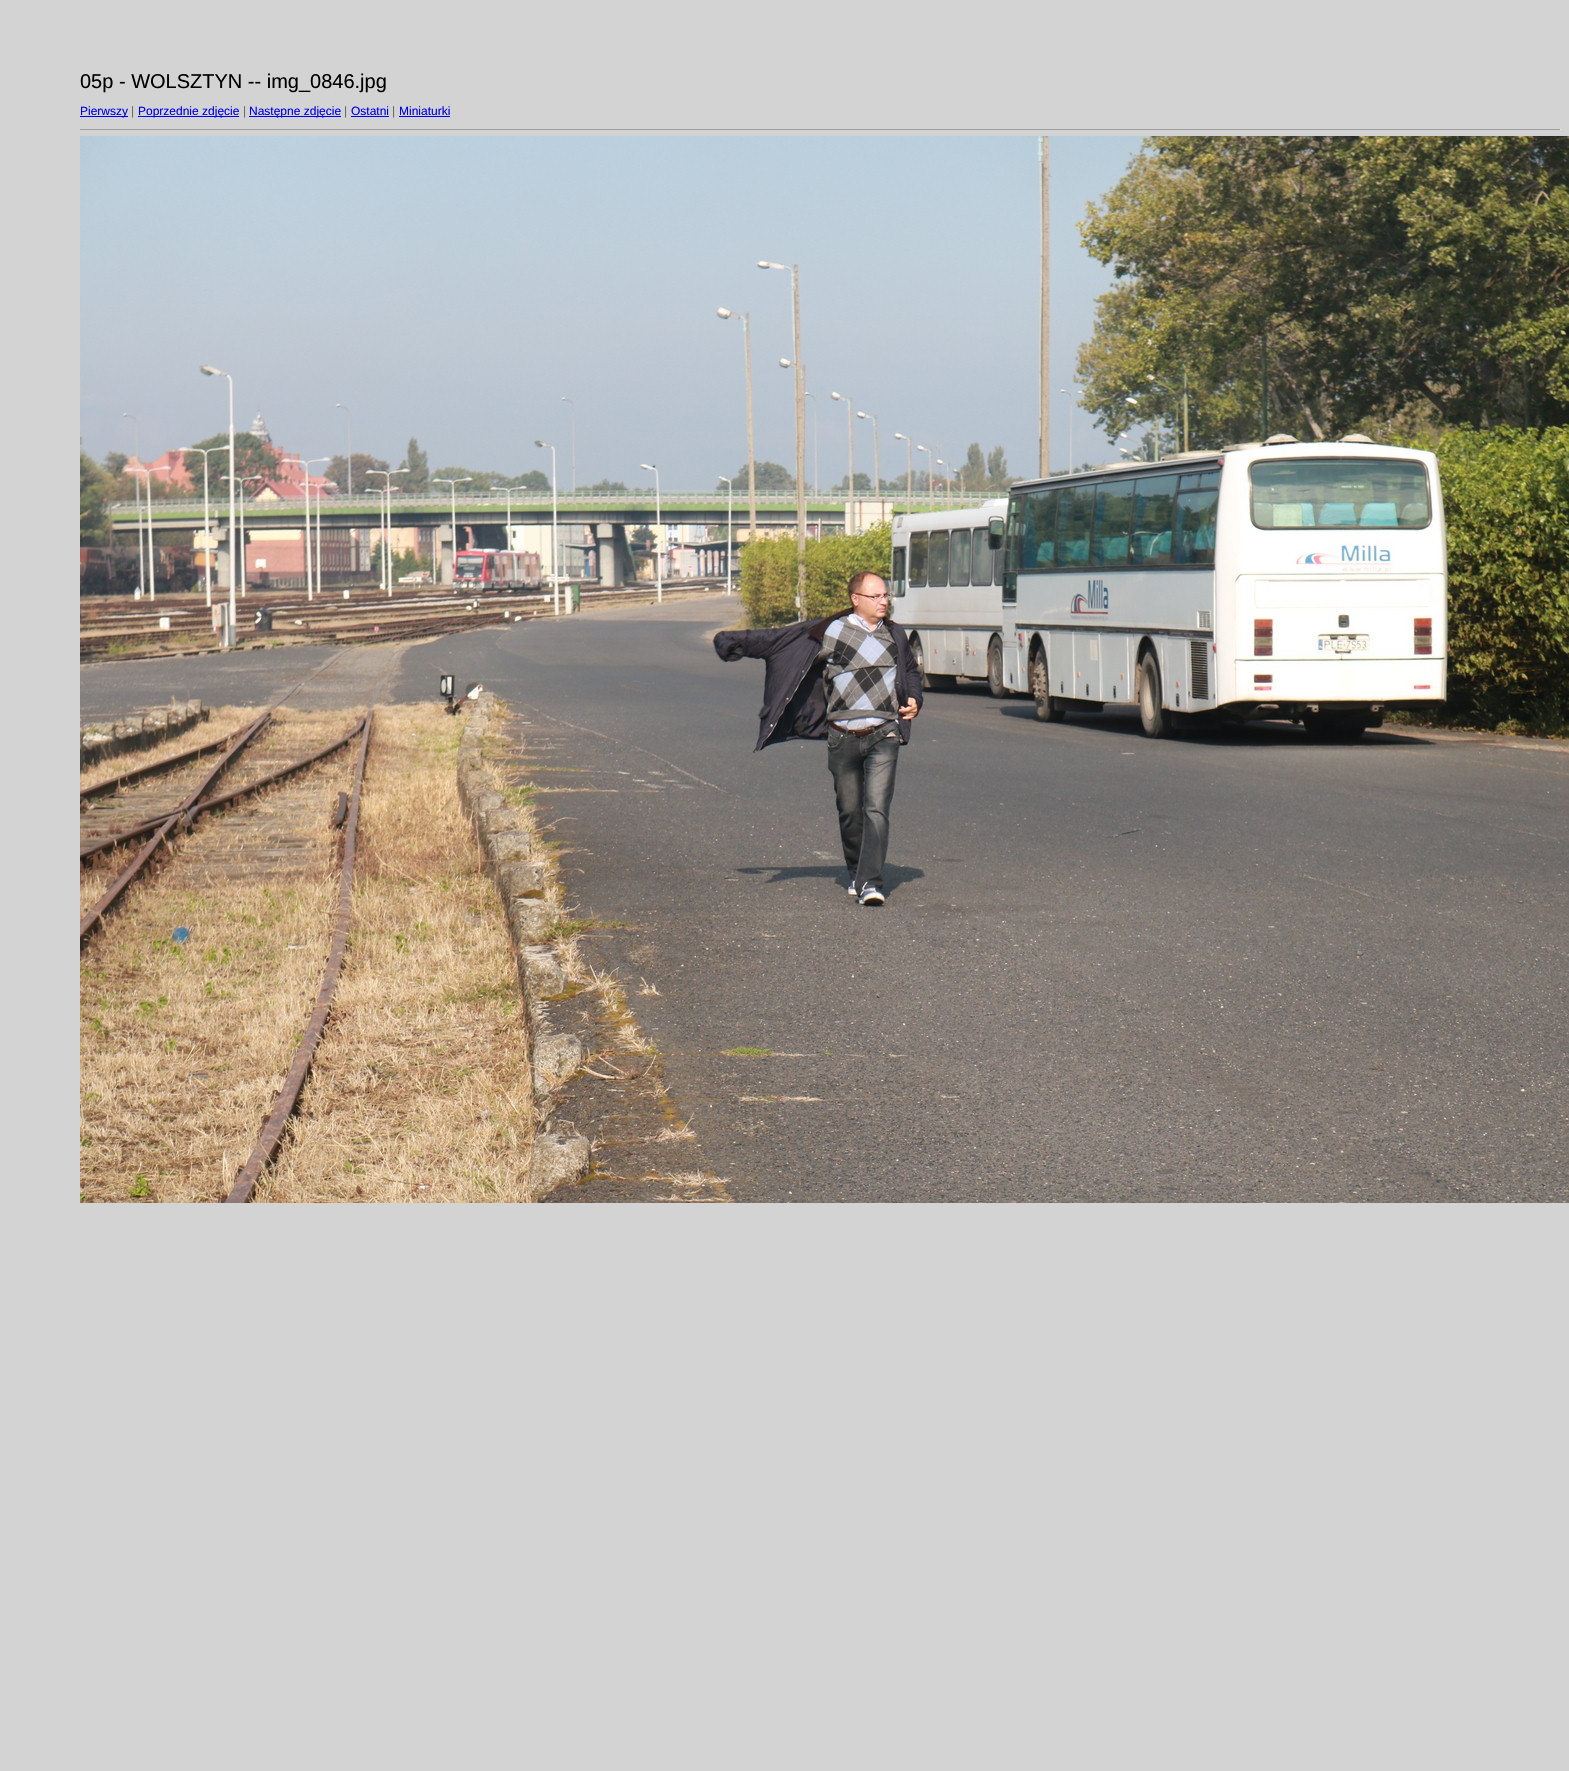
void draw(SkCanvas* canvas) {
	SkPaint fill;
	fill.setAntiAlias(true);
	auto makeFont = [&](const char* family, int weight, float size, bool italic = false) {
		SkFontStyle style(weight, SkFontStyle::kNormal_Width,
			italic ? SkFontStyle::kItalic_Slant : SkFontStyle::kUpright_Slant);
		SkFont result(fontMgr->matchFamilyStyle(family, style), size);
		result.setSubpixel(true);
		return result;
	};
	auto text = [&](const char* s, float x, float y, const SkFont& font) {
		canvas->drawString(s, x, y, font, fill);
	};
	auto box = [&](float l, float t, float r, float b) {
		canvas->drawRect(SkRect::MakeLTRB(l, t, r, b), fill);
	};
	auto picture = [&](const char* path, float l, float t, float r, float b) {
		auto image = SkImages::DeferredFromEncodedData(SkData::MakeFromFileName(path));
		canvas->drawImageRect(image, SkRect::MakeLTRB(l, t, r, b), SkSamplingOptions());
	};
	canvas->clear(0xFFD3D3D3);
	fill.setColor(0xFF0000EE);
	box(80, 116, 128, 117);
	box(138, 116, 239, 117);
	box(249, 116, 341, 117);
	box(351, 116, 389, 117);
	box(399, 116, 450, 117);
	fill.setColor(0xFF9F9F9F);
	box(80, 129, 1561, 130);
	fill.setColor(0xFFEEEEEE);
	box(1560, 129, 1561, 130);
	picture("image0.png", 80, 136, 1569, 1203);
	auto font1 = makeFont("Liberation Sans", 400, 20);
	fill.setColor(0xFF000000);
	text("05p - WOLSZTYN -- img_0846.jpg", 80, 88, font1);
	auto font2 = makeFont("Liberation Sans", 400, 12);
	fill.setColor(0xFF0000EE);
	text("Pierwszy", 80, 115, font2);
	fill.setColor(0xFF666666);
	text("|", 131, 115, font2);
	fill.setColor(0xFF0000EE);
	text("Poprzednie zdjęcie", 138, 115, font2);
	fill.setColor(0xFF666666);
	text("|", 243, 115, font2);
	fill.setColor(0xFF0000EE);
	text("Następne zdjęcie", 249, 115, font2);
	fill.setColor(0xFF666666);
	text("|", 344, 115, font2);
	fill.setColor(0xFF0000EE);
	text("Ostatni", 351, 115, font2);
	fill.setColor(0xFF666666);
	text("|", 392, 115, font2);
	fill.setColor(0xFF0000EE);
	text("Miniaturki", 399, 115, font2);
}
